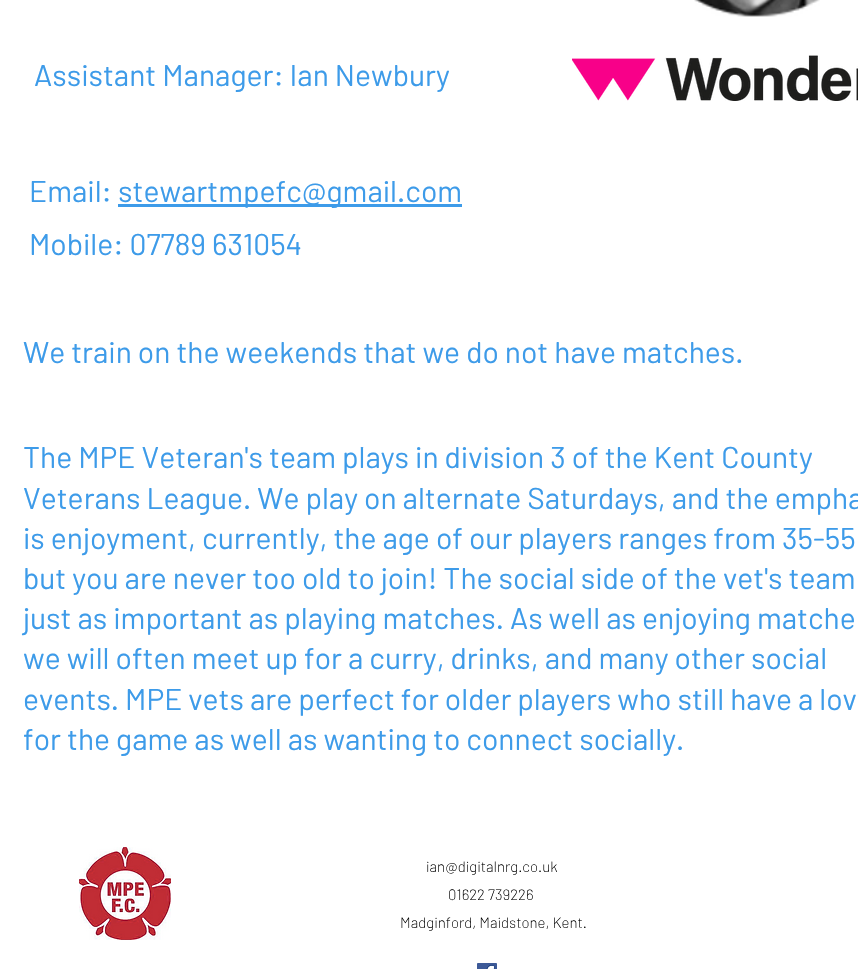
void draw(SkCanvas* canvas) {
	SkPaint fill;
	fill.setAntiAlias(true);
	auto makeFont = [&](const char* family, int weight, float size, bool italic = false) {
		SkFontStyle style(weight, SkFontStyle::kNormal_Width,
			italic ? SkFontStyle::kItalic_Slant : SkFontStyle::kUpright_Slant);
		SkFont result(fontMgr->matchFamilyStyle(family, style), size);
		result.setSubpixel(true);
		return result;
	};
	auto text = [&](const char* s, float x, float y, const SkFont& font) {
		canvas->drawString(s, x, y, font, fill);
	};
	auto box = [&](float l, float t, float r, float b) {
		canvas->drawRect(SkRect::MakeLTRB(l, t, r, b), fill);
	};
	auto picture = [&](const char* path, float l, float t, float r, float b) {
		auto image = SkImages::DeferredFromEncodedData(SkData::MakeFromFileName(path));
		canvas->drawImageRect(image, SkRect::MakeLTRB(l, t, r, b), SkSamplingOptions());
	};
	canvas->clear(0xFFFFFFFF);
	picture("image0.png", 694, 0, 820, 17);
	picture("image1.png", 572, 55, 858, 101);
	fill.setColor(0xFF3D9BE9);
	box(118, 204, 462, 207);
	picture("image2.png", 79, 847, 171, 940);
	picture("image3.png", 477, 963, 497, 969);
	auto font1 = makeFont("Barlow", 400, 30);
	text("Assistant Manager: Ian Newbury", 34, 86, font1);
	text("Email:", 29, 202, font1);
	text("stewartmpefc@gmail.com", 118, 202, font1);
	text("Mobile: 07789 631054", 29, 255, font1);
	text("We train on the weekends that we do not have matches.", 23, 363, font1);
	text("The MPE Veteran's team plays in division 3 of the Kent County", 23, 468, font1);
	text("Veterans League. We play on alternate Saturdays, and the empha", 23, 509, font1);
	text("is enjoyment, currently, the age of our players ranges from 35-55", 23, 549, font1);
	text("but you are never too old to join! The social side of the vet's team", 23, 589, font1);
	text("just as important as playing matches. As well as enjoying matche", 23, 629, font1);
	text("we will often meet up for a curry, drinks, and many other social", 23, 669, font1);
	text("events. MPE vets are perfect for older players who still have a lov", 23, 710, font1);
	text("for the game as well as wanting to connect socially.", 23, 750, font1);
	auto font2 = makeFont("Barlow", 200, 15);
	fill.setColor(0xFF000000);
	text("ian@digitalnrg.co.uk", 426, 872, font2);
	text("01622 739226", 448, 900, font2);
	text("Madginford, Maidstone, Kent.", 400, 928, font2);
}
